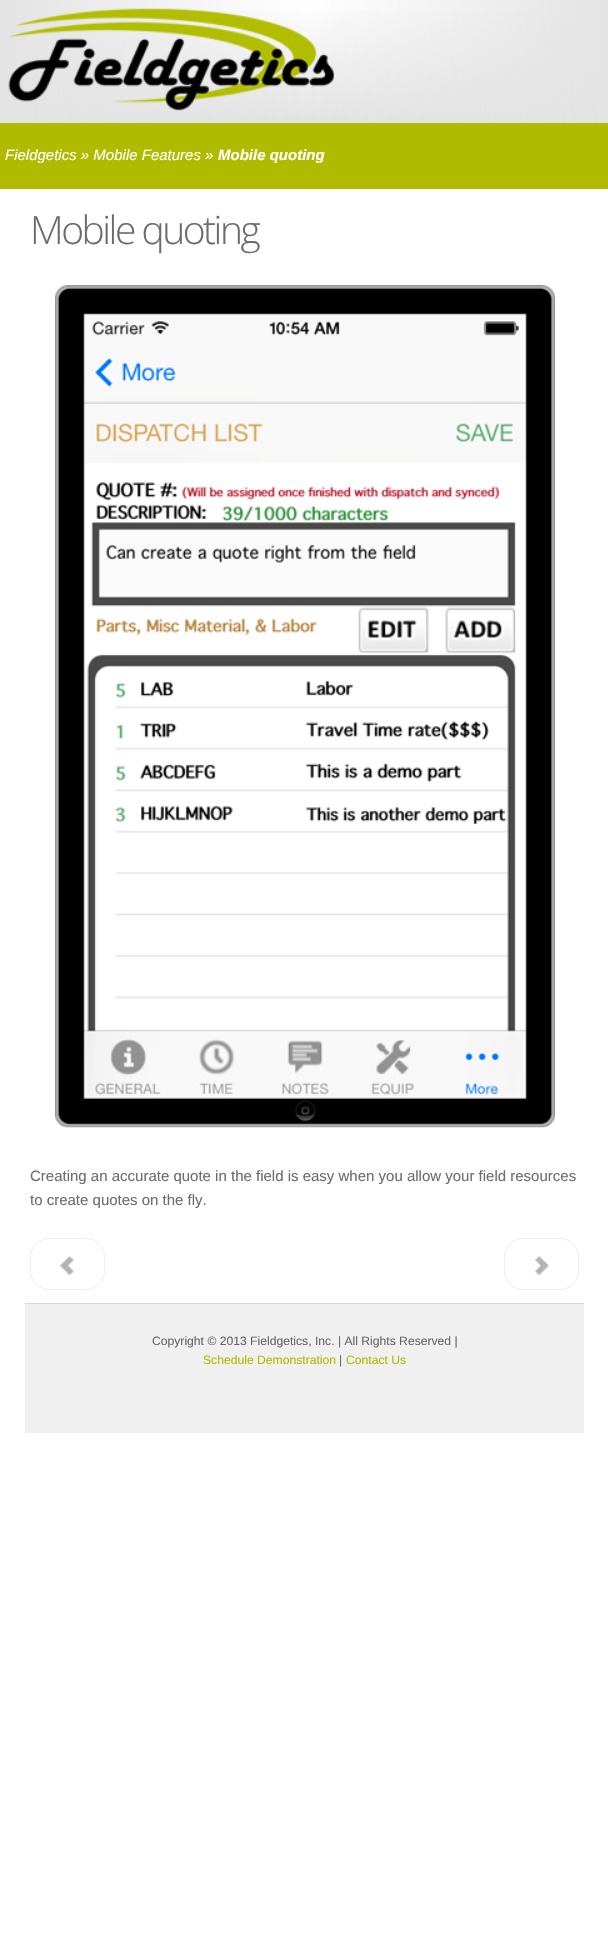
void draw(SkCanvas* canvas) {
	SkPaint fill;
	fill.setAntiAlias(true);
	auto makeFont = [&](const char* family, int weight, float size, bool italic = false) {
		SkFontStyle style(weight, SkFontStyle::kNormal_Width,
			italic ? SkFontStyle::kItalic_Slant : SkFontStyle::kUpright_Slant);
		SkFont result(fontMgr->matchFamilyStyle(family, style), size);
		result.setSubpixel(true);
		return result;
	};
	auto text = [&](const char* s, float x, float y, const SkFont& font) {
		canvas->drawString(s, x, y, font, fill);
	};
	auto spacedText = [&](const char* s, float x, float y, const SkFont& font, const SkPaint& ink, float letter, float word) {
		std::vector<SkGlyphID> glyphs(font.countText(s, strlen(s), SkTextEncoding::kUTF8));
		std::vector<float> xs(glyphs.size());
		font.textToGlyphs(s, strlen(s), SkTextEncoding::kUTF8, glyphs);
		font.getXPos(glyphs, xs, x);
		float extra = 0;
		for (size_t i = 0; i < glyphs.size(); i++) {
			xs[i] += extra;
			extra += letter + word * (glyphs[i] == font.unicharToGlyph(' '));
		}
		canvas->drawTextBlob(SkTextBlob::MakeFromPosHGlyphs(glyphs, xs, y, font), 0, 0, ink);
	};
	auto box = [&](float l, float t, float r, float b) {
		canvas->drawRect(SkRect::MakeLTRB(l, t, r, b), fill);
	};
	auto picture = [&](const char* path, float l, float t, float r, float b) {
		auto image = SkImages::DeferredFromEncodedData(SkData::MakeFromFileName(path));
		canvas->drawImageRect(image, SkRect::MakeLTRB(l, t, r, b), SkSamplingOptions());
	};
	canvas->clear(0xFFFFFFFF);
	{
		const SkColor colors[] = {0xFFFFFFFF, 0xFFE3E3E3};
		const float stops[] = {0, 1};
		const SkPoint ends[] = {{304, 0}, {304, 123}};
		fill.setShader(SkGradientShader::MakeLinear(ends, colors, stops, 2, SkTileMode::kClamp));
		fill.setAlpha(255);
	}
	box(2, 11, 607, 123);
	{
		const SkColor colors[] = {0xFFE3E3E3, 0x00E3E3E3, 0xFFE3E3E3};
		const float stops[] = {0, 0.5f, 1};
		const SkPoint ends[] = {{0, 61}, {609, 61}};
		fill.setShader(SkGradientShader::MakeLinear(ends, colors, stops, 3, SkTileMode::kClamp));
		fill.setAlpha(255);
	}
	box(0, 0, 608, 123);
	picture("image0.png", 8, 8, 334, 111);
	fill.setShader(nullptr);
	fill.setColor(0xFFB0BB00);
	box(0, 123, 608, 189);
	picture("image1.png", 55, 285, 555, 1128);
	picture("image2.png", 60, 1256, 74, 1276);
	fill.setStyle(SkPaint::kStroke_Style);
	fill.setStrokeWidth(1);
	fill.setColor(0xFFEEEEEE);
	canvas->drawRoundRect(SkRect::MakeLTRB(30.5f, 1238.5f, 104.5f, 1289.5f), 18.5f, 18.5f, fill);
	picture("image3.png", 535, 1256, 549, 1276);
	canvas->drawRoundRect(SkRect::MakeLTRB(504.5f, 1238.5f, 578.5f, 1289.5f), 18.5f, 18.5f, fill);
	fill.setStyle(SkPaint::kFill_Style);
	fill.setColor(0xFFF0F0F0);
	box(25, 1304, 584, 1433);
	fill.setColor(0xFFD7D7D7);
	box(25, 1303, 584, 1304);
	auto font1 = makeFont("Liberation Sans", 400, 15, true);
	fill.setColor(0xFFFFFFFF);
	text("Fieldgetics » Mobile Features »", 5, 160, font1);
	auto font2 = makeFont("Liberation Sans", 700, 15, true);
	text("Mobile quoting", 218, 160, font2);
	auto font3 = makeFont("Open Sans", 300, 39);
	fill.setColor(0xFF6C6C6C);
	spacedText("Mobile quoting", 30, 244, font3, fill, -2.5f, 0);
	auto font4 = makeFont("Liberation Sans", 400, 15);
	text("Creating an accurate quote in the field is easy when you allow your field resources", 30, 1181, font4);
	text("to create quotes on the fly.", 30, 1205, font4);
	auto font5 = makeFont("Liberation Sans", 400, 12.15f);
	fill.setColor(0xFF666666);
	text("Copyright © 2013 Fieldgetics, Inc. | All Rights Reserved |", 152, 1345, font5);
	fill.setColor(0xFFB0BB00);
	text("Schedule Demonstration", 203, 1364, font5);
	fill.setColor(0xFF666666);
	text("|", 339, 1364, font5);
	fill.setColor(0xFFB0BB00);
	text("Contact Us", 346, 1364, font5);
}
